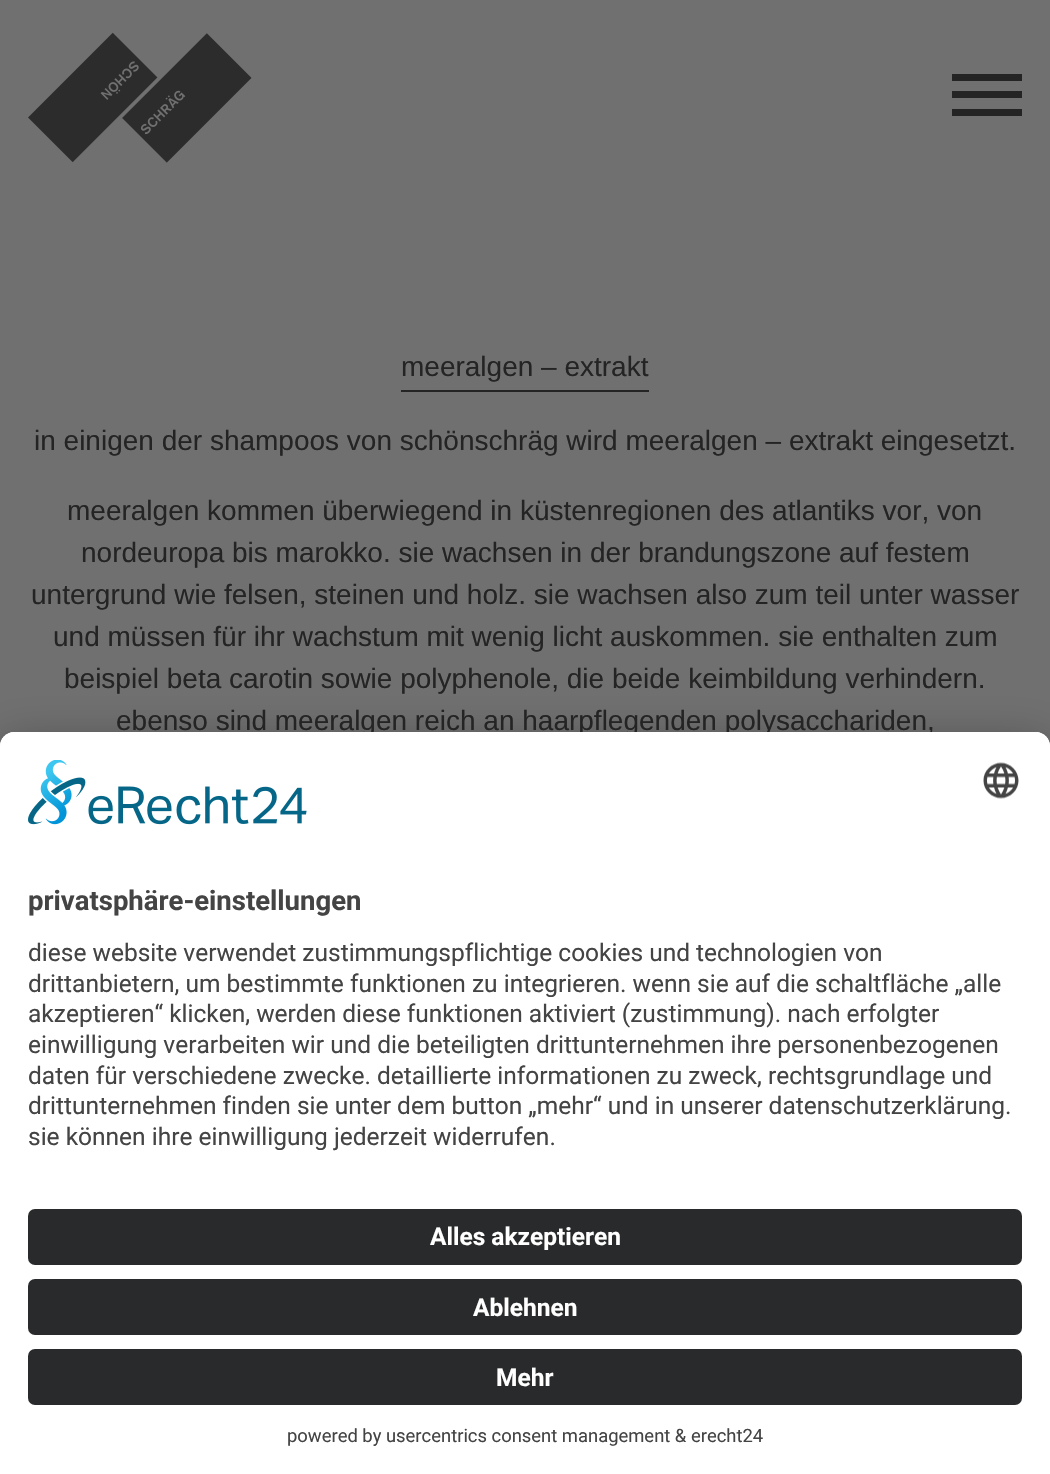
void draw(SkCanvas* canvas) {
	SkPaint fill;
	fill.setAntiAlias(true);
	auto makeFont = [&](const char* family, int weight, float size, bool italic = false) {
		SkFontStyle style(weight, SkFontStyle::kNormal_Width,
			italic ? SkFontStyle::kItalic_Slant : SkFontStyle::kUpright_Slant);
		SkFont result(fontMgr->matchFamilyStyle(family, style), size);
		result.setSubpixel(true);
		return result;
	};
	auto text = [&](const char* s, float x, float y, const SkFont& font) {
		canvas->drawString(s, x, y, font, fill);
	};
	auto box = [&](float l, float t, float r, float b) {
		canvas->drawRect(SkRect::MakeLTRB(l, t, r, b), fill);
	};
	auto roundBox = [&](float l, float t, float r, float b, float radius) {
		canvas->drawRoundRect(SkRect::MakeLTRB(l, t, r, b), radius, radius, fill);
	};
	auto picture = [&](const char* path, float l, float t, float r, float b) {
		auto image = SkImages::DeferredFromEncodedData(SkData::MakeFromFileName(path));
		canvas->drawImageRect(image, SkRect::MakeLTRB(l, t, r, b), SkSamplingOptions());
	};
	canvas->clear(0xFF707070);
	picture("image0.png", 28, 32, 252, 163);
	fill.setColor(0xFF242424);
	box(952, 109, 1022, 116);
	box(952, 74, 1022, 81);
	box(952, 91, 1022, 98);
	box(401, 390, 649, 392);
	fill.setColor(0x4D000000);
	fill.setMaskFilter(SkMaskFilter::MakeBlur(kNormal_SkBlurStyle, 24.5f));
	canvas->drawRoundRect(SkRect::MakeLTRB(0, 767, 1050, 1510), 14, 14, fill);
	fill.setMaskFilter(nullptr);
	fill.setColor(0x38000000);
	fill.setMaskFilter(SkMaskFilter::MakeBlur(kNormal_SkBlurStyle, 23));
	canvas->drawRoundRect(SkRect::MakeLTRB(0, 740, 1050, 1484), 14, 14, fill);
	fill.setMaskFilter(nullptr);
	auto font1 = makeFont("Liberation Sans", 400, 28);
	fill.setColor(0xFF242424);
	text("meeralgen – extrakt", 401, 376, font1);
	text("in einigen der shampoos von schönschräg wird meeralgen – extrakt eingesetzt.", 34, 450, font1);
	text("meeralgen kommen überwiegend in küstenregionen des atlantiks vor, von", 67, 520, font1);
	text("nordeuropa bis marokko. sie wachsen in der brandungszone auf festem", 81, 562, font1);
	text("untergrund wie felsen, steinen und holz. sie wachsen also zum teil unter wasser", 31, 604, font1);
	text("und müssen für ihr wachstum mit wenig licht auskommen. sie enthalten zum", 53, 646, font1);
	text("beispiel beta carotin sowie polyphenole, die beide keimbildung verhindern.", 64, 688, font1);
	text("ebenso sind meeralgen reich an haarpflegenden polysacchariden,", 116, 730, font1);
	fill.setColor(0xFFFFFFFF);
	canvas->drawPath(SkPathBuilder().moveTo(14, 732).lineTo(1036, 732).cubicTo(1043.5f, 732, 1050, 738.5f, 1050, 746).lineTo(1050, 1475).lineTo(0, 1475).lineTo(0, 746).cubicTo(0, 738.5f, 6.5f, 732, 14, 732).close().detach(), fill);
	canvas->drawPath(SkPathBuilder().moveTo(14, 732).lineTo(1036, 732).cubicTo(1043.5f, 732, 1050, 738.5f, 1050, 746).lineTo(1050, 1188).lineTo(0, 1188).lineTo(0, 746).cubicTo(0, 738.5f, 6.5f, 732, 14, 732).close().detach(), fill);
	picture("image1.png", 28, 760, 307, 825);
	picture("image2.png", 983, 762, 1019, 799);
	auto font2 = makeFont("Roboto", 700, 27.5f);
	fill.setColor(0xFF444444);
	text("privatsphäre-einstellungen", 28, 910, font2);
	auto font3 = makeFont("Roboto", 400, 24.5f);
	text("diese website verwendet zustimmungspflichtige cookies und technologien von", 28, 961, font3);
	text("drittanbietern, um bestimmte funktionen zu integrieren. wenn sie auf die schaltfläche „alle", 28, 992, font3);
	text("akzeptieren“ klicken, werden diese funktionen aktiviert (zustimmung). nach erfolgter", 28, 1022, font3);
	text("einwilligung verarbeiten wir und die beteiligten drittunternehmen ihre personenbezogenen", 28, 1053, font3);
	text("daten für verschiedene zwecke. detaillierte informationen zu zweck, rechtsgrundlage und", 28, 1084, font3);
	text("drittunternehmen finden sie unter dem button „mehr“ und in unserer datenschutzerklärung.", 28, 1114, font3);
	text("sie können ihre einwilligung jederzeit widerrufen.", 28, 1145, font3);
	fill.setColor(0xFF292A2B);
	roundBox(28, 1209, 1022, 1265, 7);
	auto font4 = makeFont("Roboto", 700, 24.5f);
	fill.setColor(0xFFFFFFFF);
	text("Alles akzeptieren", 430, 1245, font4);
	fill.setColor(0xFF292A2B);
	roundBox(28, 1279, 1022, 1335, 7);
	fill.setColor(0xFFFFFFFF);
	text("Ablehnen", 473, 1316, font4);
	fill.setColor(0xFF292A2B);
	roundBox(28, 1349, 1022, 1405, 7);
	fill.setColor(0xFFFFFFFF);
	text("Mehr", 496, 1386, font4);
	auto font5 = makeFont("Roboto", 400, 18.4f);
	fill.setColor(0xFF444444);
	text("powered by usercentrics consent management & erecht24", 287, 1442, font5);
}
